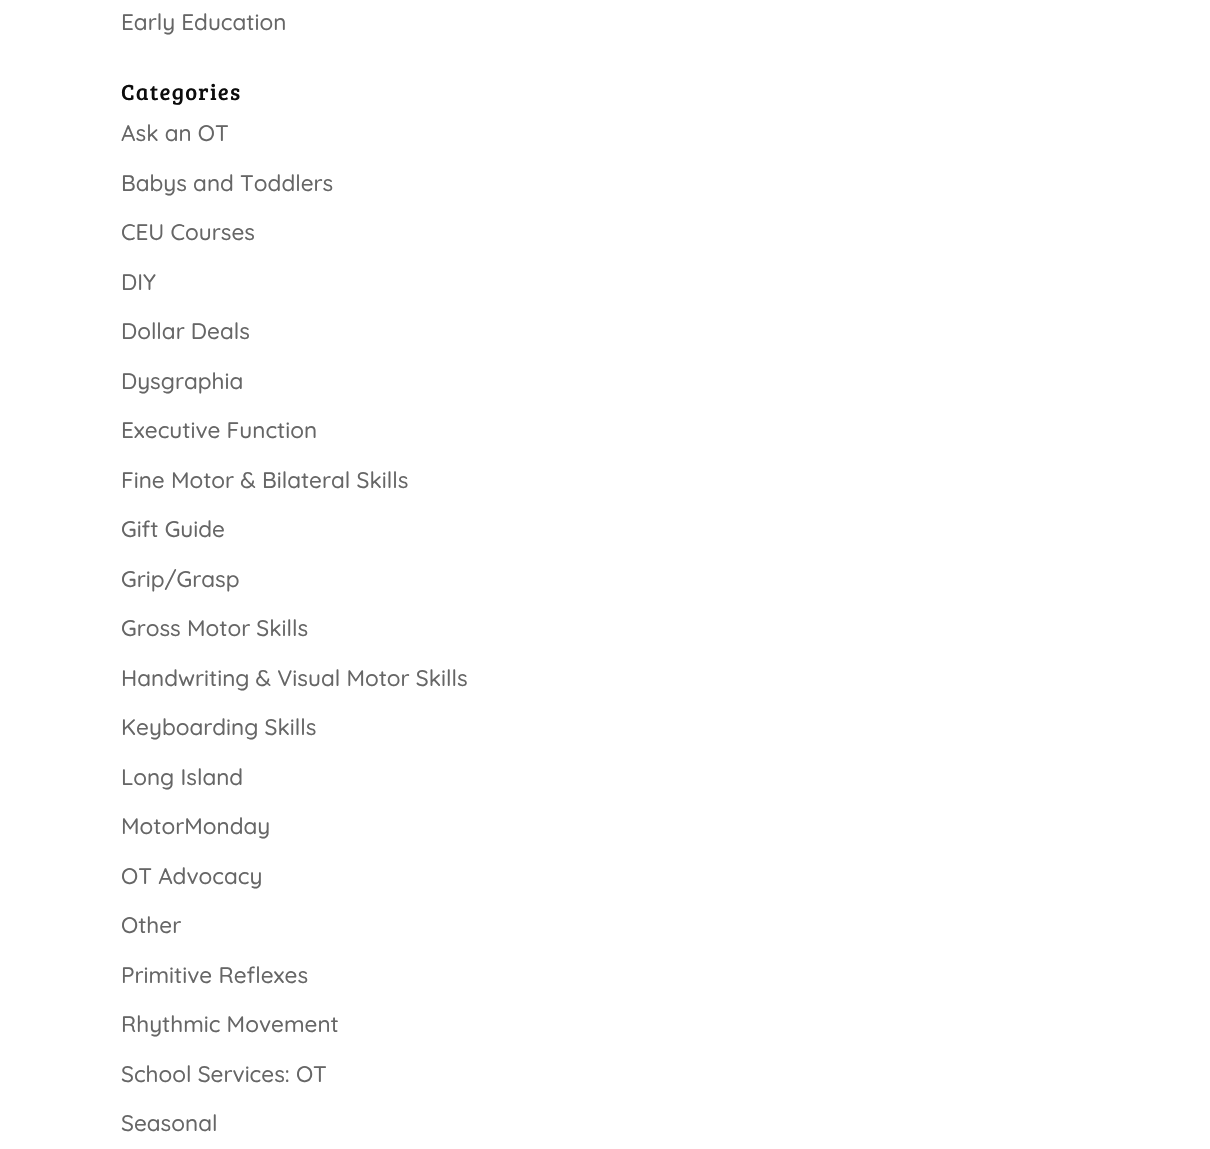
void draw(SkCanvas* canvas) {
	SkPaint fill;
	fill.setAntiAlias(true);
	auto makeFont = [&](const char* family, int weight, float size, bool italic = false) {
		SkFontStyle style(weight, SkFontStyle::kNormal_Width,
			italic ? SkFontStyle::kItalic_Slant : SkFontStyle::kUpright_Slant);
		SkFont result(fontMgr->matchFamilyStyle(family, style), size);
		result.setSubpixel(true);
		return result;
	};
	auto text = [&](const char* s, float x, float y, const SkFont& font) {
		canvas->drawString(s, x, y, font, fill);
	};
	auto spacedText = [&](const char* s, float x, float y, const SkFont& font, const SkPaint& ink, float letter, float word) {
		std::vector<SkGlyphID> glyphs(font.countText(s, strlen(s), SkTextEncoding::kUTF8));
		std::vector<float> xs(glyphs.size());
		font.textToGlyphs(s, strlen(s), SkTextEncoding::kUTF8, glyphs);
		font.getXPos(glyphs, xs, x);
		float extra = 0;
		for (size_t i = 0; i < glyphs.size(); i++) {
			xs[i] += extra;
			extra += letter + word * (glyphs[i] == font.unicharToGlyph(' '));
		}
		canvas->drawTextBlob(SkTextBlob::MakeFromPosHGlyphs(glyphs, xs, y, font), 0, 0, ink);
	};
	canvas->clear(0xFFFFFFFF);
	auto font1 = makeFont("Quicksand", 500, 22.5f);
	fill.setColor(0xFF666666);
	text("Early Education", 121, 30, font1);
	auto font2 = makeFont("Bree Serif", 400, 22.5f);
	fill.setColor(0xFF0C0C0C);
	spacedText("Categories", 121, 100, font2, fill, 1.25f, 0);
	fill.setColor(0xFF666666);
	text("Ask an OT", 121, 141, font1);
	text("Babys and Toddlers", 121, 191, font1);
	text("CEU Courses", 121, 240, font1);
	text("DIY", 121, 290, font1);
	text("Dollar Deals", 121, 339, font1);
	text("Dysgraphia", 121, 389, font1);
	text("Executive Function", 121, 438, font1);
	text("Fine Motor & Bilateral Skills", 121, 488, font1);
	text("Gift Guide", 121, 537, font1);
	text("Grip/Grasp", 121, 587, font1);
	text("Gross Motor Skills", 121, 636, font1);
	text("Handwriting & Visual Motor Skills", 121, 686, font1);
	text("Keyboarding Skills", 121, 735, font1);
	text("Long Island", 121, 785, font1);
	text("MotorMonday", 121, 834, font1);
	text("OT Advocacy", 121, 884, font1);
	text("Other", 121, 933, font1);
	text("Primitive Reflexes", 121, 983, font1);
	text("Rhythmic Movement", 121, 1032, font1);
	text("School Services: OT", 121, 1082, font1);
	text("Seasonal", 121, 1131, font1);
}
